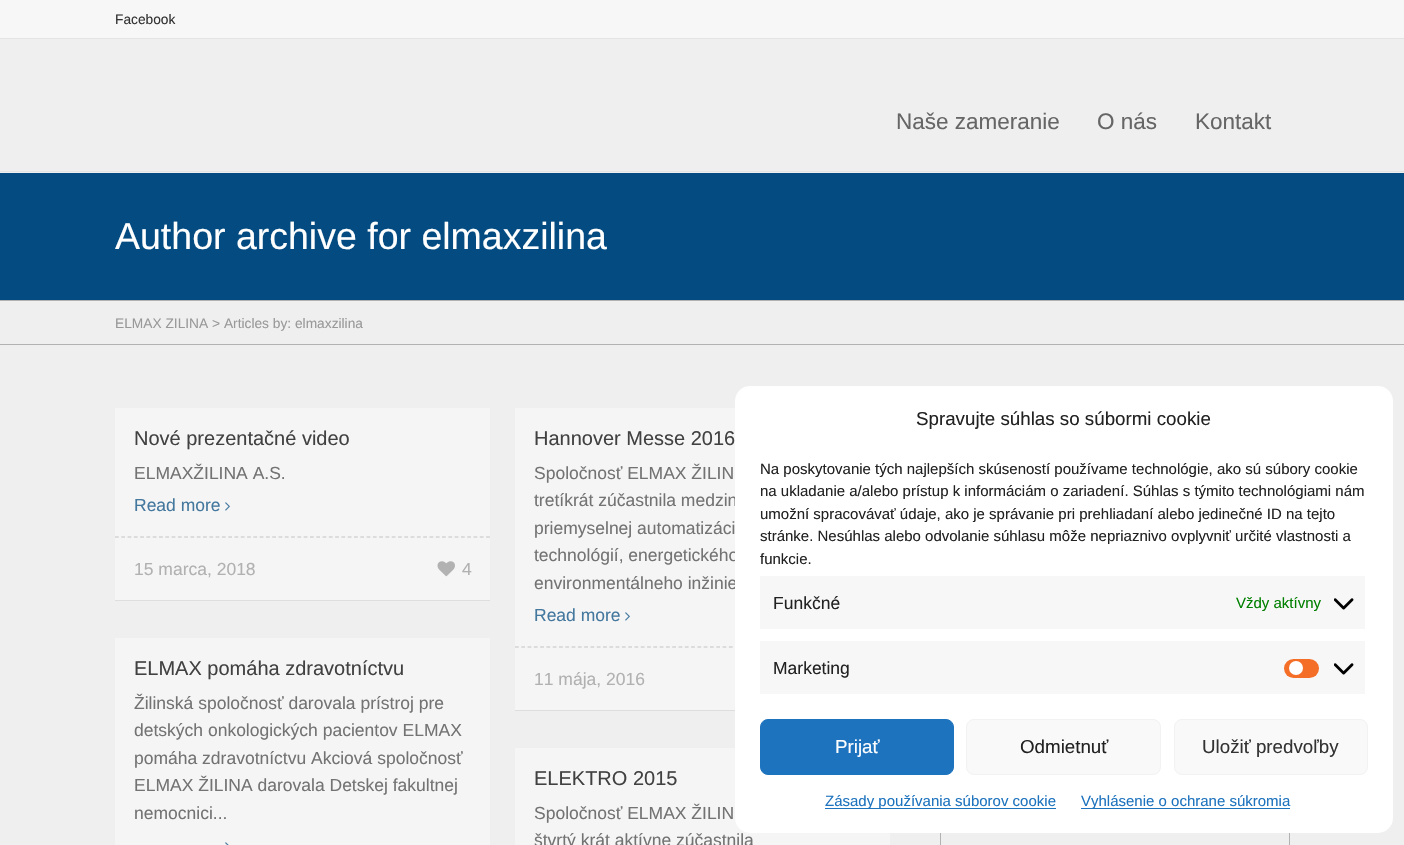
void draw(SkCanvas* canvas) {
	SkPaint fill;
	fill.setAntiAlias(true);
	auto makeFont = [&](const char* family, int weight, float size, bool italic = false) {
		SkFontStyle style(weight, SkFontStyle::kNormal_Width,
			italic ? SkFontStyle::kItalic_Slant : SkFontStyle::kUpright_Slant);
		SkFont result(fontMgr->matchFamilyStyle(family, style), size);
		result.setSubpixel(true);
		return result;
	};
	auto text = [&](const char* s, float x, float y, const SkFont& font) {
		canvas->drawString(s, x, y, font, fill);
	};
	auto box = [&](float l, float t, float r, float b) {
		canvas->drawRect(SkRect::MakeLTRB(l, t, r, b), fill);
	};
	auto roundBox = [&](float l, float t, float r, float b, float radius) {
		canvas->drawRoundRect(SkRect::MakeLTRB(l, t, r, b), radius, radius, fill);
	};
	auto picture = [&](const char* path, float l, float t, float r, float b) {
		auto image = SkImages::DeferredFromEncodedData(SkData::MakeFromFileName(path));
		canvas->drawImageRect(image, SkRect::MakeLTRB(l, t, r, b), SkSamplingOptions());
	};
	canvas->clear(0xFFF7F7F7);
	fill.setColor(0xFFE4E4E4);
	box(0, 38, 1404, 39);
	fill.setColor(0xFFEFEFEF);
	box(0, 39, 1404, 173);
	fill.setColor(0xFFE4E4E4);
	box(0, 171, 1404, 172);
	fill.setColor(0xFFEFEFEF);
	box(0, 301, 1404, 845);
	fill.setColor(0xFF034B80);
	box(0, 173, 1404, 300);
	fill.setColor(0xFFB2B2B2);
	box(0, 300, 1404, 301);
	box(0, 344, 1404, 345);
	fill.setColor(0xFFDEDEDE);
	box(115, 600, 490, 601);
	fill.setColor(0xFFF5F5F5);
	box(115, 408, 490, 600);
	picture("image0.png", 225, 502, 230, 511);
	fill.setStyle(SkPaint::kStroke_Style);
	fill.setStrokeWidth(1.2f);
	fill.setColor(0xFFC3C3C3);
	fill.setPathEffect(SkDashPathEffect::Make({{3.75f, 2.54f}}, 0));
	canvas->drawPath(SkPathBuilder().moveTo(115, 537).lineTo(490, 537).detach(), fill);
	fill.setPathEffect(nullptr);
	picture("image1.png", 437, 561, 455, 577);
	fill.setStyle(SkPaint::kFill_Style);
	fill.setColor(0xFFDEDEDE);
	box(515, 710, 735, 711);
	fill.setColor(0xFFF5F5F5);
	box(515, 408, 735, 710);
	picture("image0.png", 625, 612, 630, 621);
	fill.setStyle(SkPaint::kStroke_Style);
	fill.setColor(0xFFC3C3C3);
	fill.setPathEffect(SkDashPathEffect::Make({{3.75f, 2.54f}}, 0));
	canvas->drawPath(SkPathBuilder().moveTo(515, 647).lineTo(890, 647).detach(), fill);
	fill.setPathEffect(nullptr);
	fill.setStyle(SkPaint::kFill_Style);
	fill.setColor(0xFFF5F5F5);
	box(115, 638, 490, 845);
	picture("image2.png", 225, 842, 229, 845);
	box(515, 748, 890, 845);
	fill.setStyle(SkPaint::kStroke_Style);
	fill.setStrokeWidth(1);
	fill.setColor(0xFFB2B2B2);
	canvas->drawRect(SkRect::MakeLTRB(940.5f, 619.5f, 1289.5f, 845.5f), fill);
	auto font1 = makeFont("Liberation Sans", 400, 13.75f);
	fill.setStyle(SkPaint::kFill_Style);
	fill.setColor(0xFF333333);
	text("Facebook", 115, 24, font1);
	auto font2 = makeFont("Liberation Sans", 400, 22.5f);
	fill.setColor(0xFF666666);
	text("Naše zameranie", 896, 129, font2);
	text("O nás", 1097, 129, font2);
	text("Kontakt", 1195, 129, font2);
	auto font3 = makeFont("Liberation Sans", 400, 37.5f);
	fill.setColor(0xFFFFFFFF);
	text("Author archive for elmaxzilina", 115, 249, font3);
	fill.setColor(0xFF999999);
	text("ELMAX ZILINA > Articles by: elmaxzilina", 115, 328, font1);
	auto font4 = makeFont("Liberation Sans", 400, 20);
	fill.setColor(0xFF414141);
	text("Nové prezentačné video", 134, 445, font4);
	auto font5 = makeFont("Liberation Sans", 400, 17.5f);
	fill.setColor(0xFF737373);
	text("ELMAXŽILINA A.S.", 134, 479, font5);
	fill.setColor(0xFF44789E);
	text("Read more", 134, 511, font5);
	fill.setColor(0xFFB1B1B1);
	text("15 marca, 2018", 134, 575, font5);
	text("4", 462, 575, font5);
	fill.setColor(0xFF414141);
	text("Hannover Messe 2016", 534, 445, font4);
	fill.setColor(0xFF737373);
	text("Spoločnosť ELMAX ŽILIN", 534, 479, font5);
	text("tretíkrát zúčastnila medzin", 534, 506, font5);
	text("priemyselnej automatizáci", 534, 534, font5);
	text("technológií, energetického", 534, 561, font5);
	text("environmentálneho inžinie", 534, 589, font5);
	fill.setColor(0xFF44789E);
	text("Read more", 534, 621, font5);
	fill.setColor(0xFFB1B1B1);
	text("11 mája, 2016", 534, 685, font5);
	fill.setColor(0xFF414141);
	text("ELMAX pomáha zdravotníctvu", 134, 675, font4);
	fill.setColor(0xFF737373);
	text("Žilinská spoločnosť darovala prístroj pre", 134, 709, font5);
	text("detských onkologických pacientov ELMAX", 134, 736, font5);
	text("pomáha zdravotníctvu Akciová spoločnosť", 134, 764, font5);
	text("ELMAX ŽILINA darovala Detskej fakultnej", 134, 791, font5);
	text("nemocnici...", 134, 819, font5);
	fill.setColor(0xFF414141);
	text("ELEKTRO 2015", 534, 785, font4);
	fill.setColor(0xFF737373);
	text("Spoločnosť ELMAX ŽILIN", 534, 819, font5);
	text("štvrtý krát aktívne zúčastnila", 534, 846, font5);
	fill.setColor(0xFFFFFFFF);
	roundBox(735, 386, 1393, 833, 15);
	auto font6 = makeFont("Liberation Sans", 400, 18.75f);
	fill.setColor(0xFF222222);
	text("Spravujte súhlas so súbormi cookie", 916, 425, font6);
	auto font7 = makeFont("Liberation Sans", 400, 15);
	text("Na poskytovanie tých najlepších skúseností používame technológie, ako sú súbory cookie", 760, 474, font7);
	text("na ukladanie a/alebo prístup k informáciám o zariadení. Súhlas s týmito technológiami nám", 760, 496, font7);
	text("umožní spracovávať údaje, ako je správanie pri prehliadaní alebo jedinečné ID na tejto", 760, 519, font7);
	text("stránke. Nesúhlas alebo odvolanie súhlasu môže nepriaznivo ovplyvniť určité vlastnosti a", 760, 541, font7);
	text("funkcie.", 760, 564, font7);
	fill.setColor(0xFFF7F7F7);
	box(760, 576, 1365, 629);
	fill.setColor(0xFF222222);
	text("Funkčné", 773, 609, font5);
	fill.setColor(0xFF008000);
	text("Vždy aktívny", 1236, 608, font7);
	picture("image3.png", 1334, 598, 1354, 610);
	fill.setColor(0xFFF7F7F7);
	box(760, 641, 1365, 694);
	fill.setColor(0xFF222222);
	text("Marketing", 773, 674, font5);
	fill.setColor(0xFFF56E28);
	roundBox(1284, 659, 1319, 678, 9.5f);
	fill.setColor(0xFFFFFFFF);
	canvas->drawCircle(1296, 668, 7, fill);
	picture("image3.png", 1334, 663, 1354, 675);
	fill.setColor(0xFF1E73BE);
	canvas->drawRoundRect(SkRect::MakeLTRB(760.5f, 719.5f, 953.5f, 774.5f), 7.5f, 7.5f, fill);
	fill.setStyle(SkPaint::kStroke_Style);
	canvas->drawRoundRect(SkRect::MakeLTRB(760.5f, 719.5f, 953.5f, 774.5f), 7.5f, 7.5f, fill);
	fill.setStyle(SkPaint::kFill_Style);
	fill.setColor(0xFFFFFFFF);
	text("Prijať", 835, 753, font6);
	fill.setColor(0xFFF9F9F9);
	canvas->drawRoundRect(SkRect::MakeLTRB(966.5f, 719.5f, 1160.5f, 774.5f), 7.5f, 7.5f, fill);
	fill.setStyle(SkPaint::kStroke_Style);
	fill.setColor(0xFFF2F2F2);
	canvas->drawRoundRect(SkRect::MakeLTRB(966.5f, 719.5f, 1160.5f, 774.5f), 7.5f, 7.5f, fill);
	fill.setStyle(SkPaint::kFill_Style);
	fill.setColor(0xFF222222);
	text("Odmietnuť", 1020, 753, font6);
	fill.setColor(0xFFF9F9F9);
	canvas->drawRoundRect(SkRect::MakeLTRB(1174.5f, 719.5f, 1367.5f, 774.5f), 7.5f, 7.5f, fill);
	fill.setStyle(SkPaint::kStroke_Style);
	fill.setColor(0xFFF2F2F2);
	canvas->drawRoundRect(SkRect::MakeLTRB(1174.5f, 719.5f, 1367.5f, 774.5f), 7.5f, 7.5f, fill);
	fill.setStyle(SkPaint::kFill_Style);
	fill.setColor(0xFF333333);
	text("Uložiť predvoľby", 1202, 753, font6);
	fill.setColor(0xFF1E73BE);
	box(825, 808, 1056, 809);
	text("Zásady používania súborov cookie", 825, 806, font7);
	box(1081, 808, 1290, 809);
	text("Vyhlásenie o ochrane súkromia", 1081, 806, font7);
}
